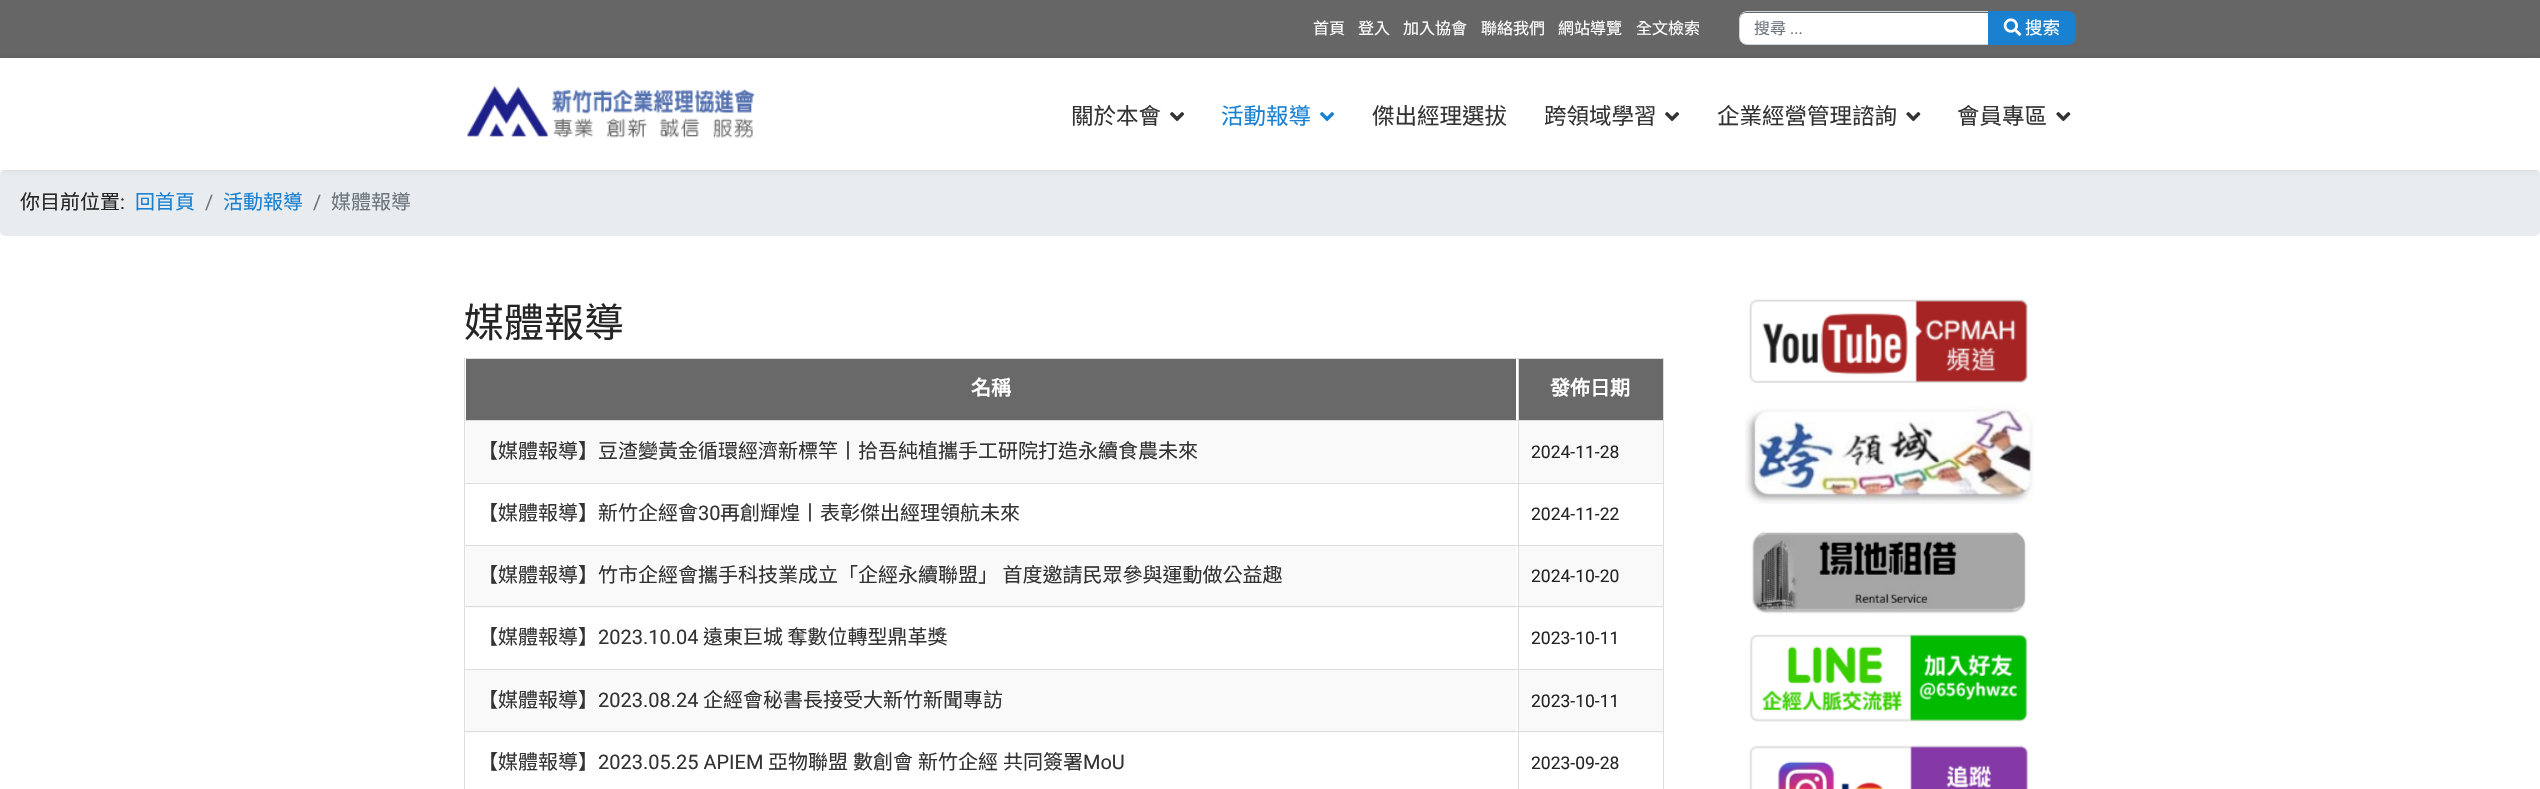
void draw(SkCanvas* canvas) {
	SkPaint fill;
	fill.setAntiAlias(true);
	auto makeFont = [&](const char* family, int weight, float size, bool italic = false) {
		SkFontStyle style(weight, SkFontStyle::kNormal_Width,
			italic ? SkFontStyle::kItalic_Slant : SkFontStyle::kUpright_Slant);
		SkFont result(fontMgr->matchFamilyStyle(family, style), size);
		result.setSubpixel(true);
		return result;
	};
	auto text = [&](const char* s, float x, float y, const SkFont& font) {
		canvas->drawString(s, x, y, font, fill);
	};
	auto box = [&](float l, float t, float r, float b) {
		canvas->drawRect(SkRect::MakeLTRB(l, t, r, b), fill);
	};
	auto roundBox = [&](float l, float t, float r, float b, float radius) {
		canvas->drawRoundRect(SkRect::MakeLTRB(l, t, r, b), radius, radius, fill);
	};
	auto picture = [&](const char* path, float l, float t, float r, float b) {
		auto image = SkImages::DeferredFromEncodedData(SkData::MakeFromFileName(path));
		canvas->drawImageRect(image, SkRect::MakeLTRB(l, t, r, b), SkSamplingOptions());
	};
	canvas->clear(0xFFFFFFFF);
	fill.setColor(0xFF666666);
	box(0, 0, 2540, 58);
	fill.setColor(0xFFFFFFFF);
	canvas->drawPath(SkPathBuilder().moveTo(1746, 13).lineTo(1988, 13).lineTo(1988, 44).lineTo(1746, 44).cubicTo(1742.5f, 44, 1740, 41.5f, 1740, 38).lineTo(1740, 19).cubicTo(1740, 15.5f, 1742.5f, 13, 1746, 13).close().detach(), fill);
	fill.setStyle(SkPaint::kStroke_Style);
	fill.setStrokeWidth(1);
	fill.setColor(0xFFCED4DA);
	canvas->drawPath(SkPathBuilder().moveTo(1747, 11.5f).lineTo(1988.5f, 11.5f).lineTo(1988.5f, 44.5f).lineTo(1747, 44.5f).cubicTo(1743, 44.5f, 1739.5f, 41, 1739.5f, 37).lineTo(1739.5f, 19).cubicTo(1739.5f, 15, 1743, 11.5f, 1747, 11.5f).close().detach(), fill);
	fill.setStyle(SkPaint::kFill_Style);
	fill.setColor(0xFF1A81D1);
	canvas->drawPath(SkPathBuilder().moveTo(1988.5f, 11.5f).lineTo(2068, 11.5f).cubicTo(2072, 11.5f, 2075.5f, 15, 2075.5f, 19).lineTo(2075.5f, 37).cubicTo(2075.5f, 41, 2072, 44.5f, 2068, 44.5f).lineTo(1988.5f, 44.5f).close().detach(), fill);
	fill.setStyle(SkPaint::kStroke_Style);
	canvas->drawPath(SkPathBuilder().moveTo(1988.5f, 11.5f).lineTo(2068, 11.5f).cubicTo(2072, 11.5f, 2075.5f, 15, 2075.5f, 19).lineTo(2075.5f, 37).cubicTo(2075.5f, 41, 2072, 44.5f, 2068, 44.5f).lineTo(1988.5f, 44.5f).close().detach(), fill);
	picture("image0.png", 2003, 18, 2022, 36);
	fill.setStyle(SkPaint::kFill_Style);
	fill.setColor(0xFFE9ECEF);
	roundBox(0, 170, 2540, 236, 5);
	canvas->save();
	canvas->clipPath(SkPathBuilder(SkPathFillType::kEvenOdd).moveTo(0, 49).lineTo(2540, 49).lineTo(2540, 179).lineTo(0, 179).close().moveTo(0, 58).lineTo(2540, 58).lineTo(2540, 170).lineTo(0, 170).close().detach(), true);
	fill.setColor(0x1A000000);
	fill.setMaskFilter(SkMaskFilter::MakeBlur(kNormal_SkBlurStyle, 2.5f));
	canvas->drawRect(SkRect::MakeLTRB(0, 58, 2540, 170), fill);
	fill.setMaskFilter(nullptr);
	canvas->restore();
	picture("image1.png", 467, 86, 755, 138);
	picture("image2.png", 1170, 112, 1185, 122);
	picture("image3.png", 1320, 112, 1335, 122);
	picture("image2.png", 1665, 112, 1680, 122);
	picture("image4.png", 1906, 112, 1921, 122);
	picture("image4.png", 2056, 112, 2071, 122);
	fill.setColor(0xFFDDDDDD);
	box(464, 358, 1664, 359);
	box(464, 420, 1664, 421);
	box(464, 483, 1664, 484);
	box(464, 545, 1664, 546);
	fill.setColor(0xFFF9F9F9);
	box(466, 546, 1516, 608);
	box(1519, 546, 1663, 608);
	fill.setColor(0xFFDDDDDD);
	box(464, 606, 1664, 607);
	box(464, 669, 1664, 670);
	fill.setColor(0xFFF9F9F9);
	box(466, 670, 1516, 733);
	box(1519, 670, 1663, 733);
	fill.setColor(0xFFDDDDDD);
	box(464, 731, 1664, 732);
	box(1663, 731, 1664, 789);
	box(1663, 669, 1664, 733);
	box(1663, 606, 1664, 670);
	box(1663, 545, 1664, 608);
	box(1663, 483, 1664, 546);
	box(1663, 420, 1664, 484);
	box(1663, 358, 1664, 421);
	box(464, 731, 465, 789);
	box(464, 669, 465, 733);
	box(464, 606, 465, 670);
	box(464, 545, 465, 608);
	box(464, 483, 465, 546);
	box(464, 420, 465, 484);
	box(464, 358, 465, 421);
	fill.setColor(0xFF696969);
	box(466, 359, 1516, 420);
	box(1519, 359, 1663, 420);
	fill.setColor(0xFFF9F9F9);
	box(466, 421, 1516, 483);
	box(1519, 421, 1663, 483);
	fill.setColor(0xFFDDDDDD);
	box(1518, 358, 1519, 789);
	picture("image5.png", 1749, 299, 2028, 383);
	picture("image6.png", 1745, 403, 2035, 504);
	picture("image7.png", 1751, 532, 2026, 614);
	picture("image8.png", 1749, 634, 2028, 722);
	picture("image9.png", 1749, 745, 2028, 789);
	auto font1 = makeFont("Noto Sans CJK TC", 400, 16);
	fill.setColor(0xFFFFFFFF);
	text("首頁", 1313, 34, font1);
	text("登入", 1358, 34, font1);
	text("加入協會", 1403, 34, font1);
	text("聯絡我們", 1481, 34, font1);
	text("網站導覽", 1558, 34, font1);
	text("全文檢索", 1636, 34, font1);
	fill.setColor(0xFF6C757D);
	text("搜尋", 1754, 34, font1);
	auto font2 = makeFont("Roboto", 400, 16);
	text("...", 1790, 34, font2);
	auto font3 = makeFont("Noto Sans CJK TC", 400, 17.5f);
	fill.setColor(0xFFFFFFFF);
	text("搜索", 2025, 34, font3);
	auto font4 = makeFont("Noto Sans CJK TC", 400, 22.5f);
	fill.setColor(0xFF333333);
	text("關於本會", 1071, 124, font4);
	fill.setColor(0xFF1A81D1);
	text("活動報導", 1221, 124, font4);
	fill.setColor(0xFF333333);
	text("傑出經理選拔", 1372, 124, font4);
	text("跨領域學習", 1544, 124, font4);
	text("企業經營管理諮詢", 1717, 124, font4);
	text("會員專區", 1957, 124, font4);
	auto font5 = makeFont("Noto Sans CJK TC", 400, 20);
	fill.setColor(0xFF252525);
	text("你目前位置", 20, 209, font5);
	auto font6 = makeFont("Roboto", 400, 20);
	text(":", 120, 209, font6);
	fill.setColor(0xFF1A81D1);
	text("回首頁", 135, 209, font5);
	fill.setColor(0xFF6C757D);
	text("/", 205, 209, font6);
	fill.setColor(0xFF1A81D1);
	text("活動報導", 223, 209, font5);
	fill.setColor(0xFF6C757D);
	text("/", 313, 209, font6);
	text("媒體報導", 331, 209, font5);
	auto font7 = makeFont("Noto Sans CJK TC", 400, 40);
	fill.setColor(0xFF252525);
	text("媒體報導", 464, 337, font7);
	auto font8 = makeFont("Noto Sans CJK TC", 700, 20);
	fill.setColor(0xFFFFFFFF);
	text("名稱", 971, 395, font8);
	text("發佈日期", 1550, 395, font8);
	fill.setColor(0xFF333333);
	text("【媒體報導】豆渣變黃金循環經濟新標竿丨拾吾純植攜手工研院打造永續食農未來", 478, 458, font5);
	auto font9 = makeFont("Roboto", 400, 17.5f);
	fill.setColor(0xFF252525);
	text("2024-11-28", 1531, 458, font9);
	fill.setColor(0xFF333333);
	text("【媒體報導】新竹企經會", 478, 520, font5);
	text("30", 698, 520, font6);
	text("再創輝煌丨表彰傑出經理領航未來", 720, 520, font5);
	fill.setColor(0xFF252525);
	text("2024-11-22", 1531, 520, font9);
	fill.setColor(0xFF333333);
	text("【媒體報導】竹市企經會攜手科技業成立「企經永續聯盟」 首度邀請民眾參與運動做公益趣", 478, 582, font5);
	fill.setColor(0xFF252525);
	text("2024-10-20", 1531, 582, font9);
	fill.setColor(0xFF333333);
	text("【媒體報導】", 478, 644, font5);
	text("2023.10.04", 598, 644, font6);
	text("遠東巨城 奪數位轉型鼎革獎", 703, 644, font5);
	fill.setColor(0xFF252525);
	text("2023-10-11", 1531, 644, font9);
	fill.setColor(0xFF333333);
	text("【媒體報導】", 478, 707, font5);
	text("2023.08.24", 598, 707, font6);
	text("企經會秘書長接受大新竹新聞專訪", 703, 707, font5);
	fill.setColor(0xFF252525);
	text("2023-10-11", 1531, 707, font9);
	fill.setColor(0xFF333333);
	text("【媒體報導】", 478, 769, font5);
	text("2023.05.25 APIEM", 598, 769, font6);
	text("亞物聯盟", 768, 769, font5);
	text("數創會", 853, 769, font5);
	text("新竹企經", 918, 769, font5);
	text("共同簽署", 1003, 769, font5);
	text("MoU", 1083, 769, font6);
	fill.setColor(0xFF252525);
	text("2023-09-28", 1531, 769, font9);
}
